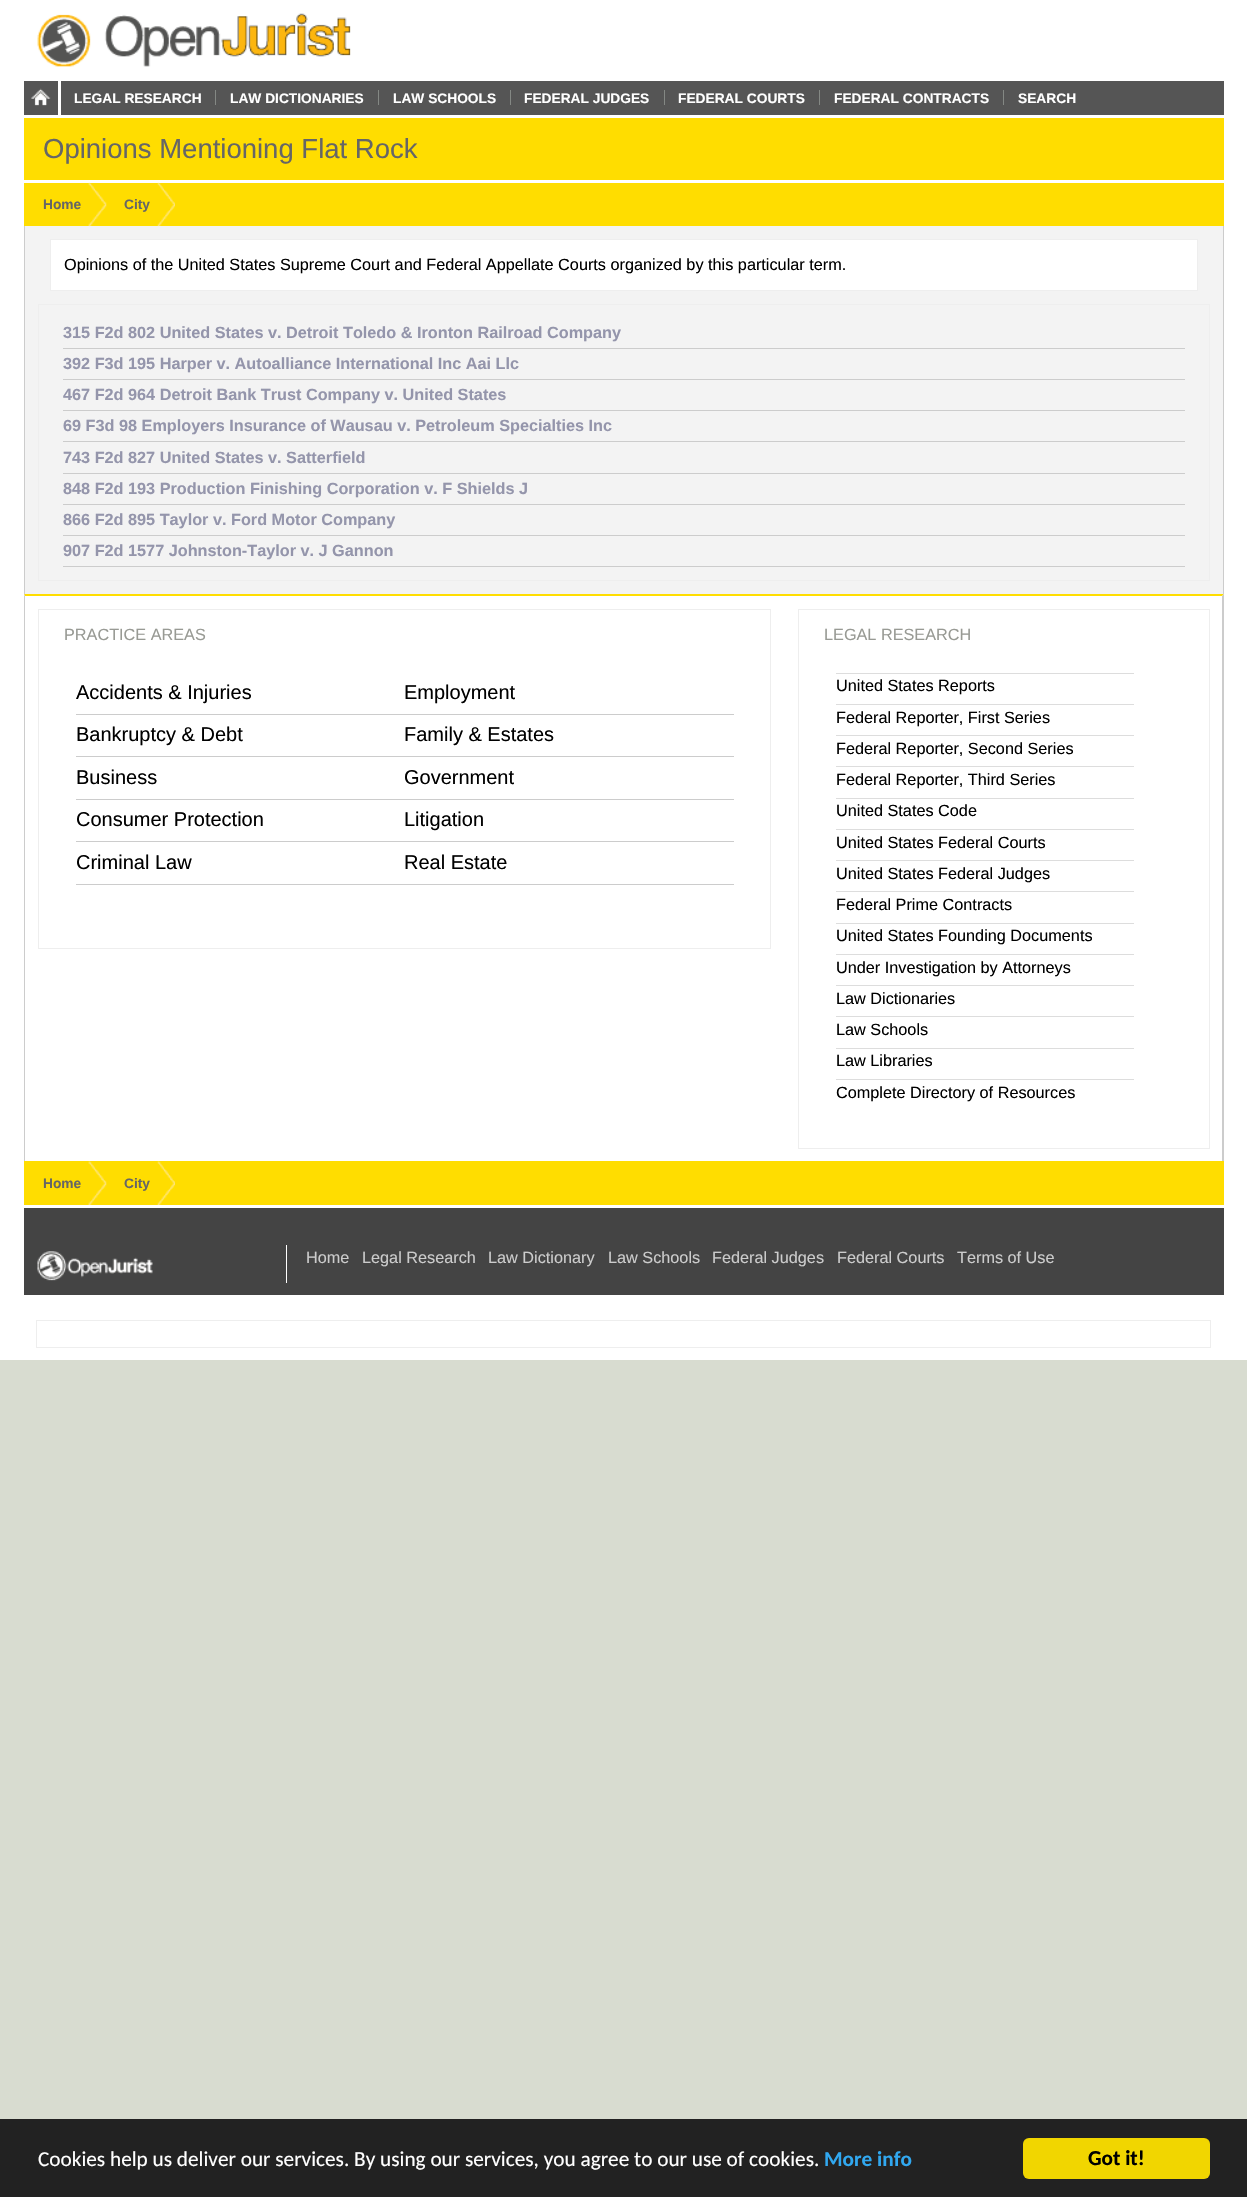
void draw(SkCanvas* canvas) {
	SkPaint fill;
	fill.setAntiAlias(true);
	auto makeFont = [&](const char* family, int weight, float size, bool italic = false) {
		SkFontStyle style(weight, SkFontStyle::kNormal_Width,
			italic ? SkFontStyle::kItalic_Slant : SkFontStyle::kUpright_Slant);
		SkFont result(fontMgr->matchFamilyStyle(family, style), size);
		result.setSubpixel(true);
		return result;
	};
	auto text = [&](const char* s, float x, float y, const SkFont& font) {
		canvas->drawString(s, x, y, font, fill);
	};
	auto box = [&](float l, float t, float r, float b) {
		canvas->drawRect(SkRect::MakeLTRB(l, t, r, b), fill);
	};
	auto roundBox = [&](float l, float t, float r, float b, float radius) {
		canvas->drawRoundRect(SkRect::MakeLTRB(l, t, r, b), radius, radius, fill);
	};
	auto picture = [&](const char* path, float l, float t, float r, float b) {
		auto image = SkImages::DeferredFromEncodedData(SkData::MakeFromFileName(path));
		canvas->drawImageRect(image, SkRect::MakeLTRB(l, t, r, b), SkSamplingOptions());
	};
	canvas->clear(0xFFD8DCD0);
	fill.setColor(0xFFFFFFFF);
	box(0, 0, 1247, 1360);
	picture("image0.png", 37, 13, 351, 67);
	fill.setColor(0xFF555555);
	box(24, 81, 1224, 115);
	picture("image1.png", 31, 88, 51, 106);
	fill.setColor(0xFFFFFFFF);
	box(58, 81, 61, 115);
	fill.setColor(0xFF848884);
	box(215, 90, 216, 105);
	box(378, 90, 379, 105);
	box(510, 90, 511, 105);
	box(664, 90, 665, 105);
	box(819, 90, 820, 105);
	box(1003, 90, 1004, 105);
	fill.setColor(0xFFFFDD00);
	box(24, 118, 1224, 180);
	box(24, 183, 1224, 226);
	fill.setColor(0xFFF3F3F3);
	box(25, 226, 1223, 594);
	picture("image2.png", 88, 182, 107, 227);
	picture("image3.png", 157, 182, 175, 227);
	fill.setColor(0xFFCCCCCC);
	box(1223, 226, 1224, 594);
	box(24, 226, 25, 594);
	fill.setColor(0xFFFFFFFF);
	canvas->drawRect(SkRect::MakeLTRB(50.5f, 239.5f, 1197.5f, 290.5f), fill);
	fill.setStyle(SkPaint::kStroke_Style);
	fill.setStrokeWidth(1);
	fill.setColor(0xFFEEEEEE);
	canvas->drawRect(SkRect::MakeLTRB(50.5f, 239.5f, 1197.5f, 290.5f), fill);
	canvas->drawRect(SkRect::MakeLTRB(38.5f, 304.5f, 1209.5f, 580.5f), fill);
	fill.setStyle(SkPaint::kFill_Style);
	fill.setColor(0xFFCCCCCC);
	box(63, 348, 1185, 349);
	box(63, 379, 1185, 380);
	box(63, 410, 1185, 411);
	box(63, 441, 1185, 442);
	box(63, 473, 1185, 474);
	box(63, 504, 1185, 505);
	box(63, 535, 1185, 536);
	box(63, 566, 1185, 567);
	fill.setColor(0xFFFFDD00);
	canvas->drawPath(SkPathBuilder().moveTo(24, 594).lineTo(1224, 594).lineTo(1222, 596).lineTo(25, 596).close().detach(), fill);
	fill.setColor(0xFFCCCCCC);
	canvas->drawPath(SkPathBuilder().moveTo(1224, 594).lineTo(1224, 1161).lineTo(1222, 1161).lineTo(1222, 596).close().detach(), fill);
	canvas->drawPath(SkPathBuilder().moveTo(24, 1161).lineTo(24, 594).lineTo(25, 596).lineTo(25, 1161).close().detach(), fill);
	fill.setStyle(SkPaint::kStroke_Style);
	fill.setColor(0xFFEEEEEE);
	canvas->drawRect(SkRect::MakeLTRB(38.5f, 609.5f, 770.5f, 948.5f), fill);
	fill.setStyle(SkPaint::kFill_Style);
	fill.setColor(0xFFCCCCCC);
	box(76, 714, 734, 715);
	box(76, 756, 734, 757);
	box(76, 799, 734, 800);
	box(76, 841, 734, 842);
	box(76, 884, 734, 885);
	fill.setStyle(SkPaint::kStroke_Style);
	fill.setColor(0xFFEEEEEE);
	canvas->drawRect(SkRect::MakeLTRB(798.5f, 609.5f, 1209.5f, 1148.5f), fill);
	fill.setStyle(SkPaint::kFill_Style);
	fill.setColor(0xFFDDDDDD);
	box(836, 673, 1134, 674);
	box(836, 704, 1134, 705);
	box(836, 735, 1134, 736);
	box(836, 766, 1134, 767);
	box(836, 798, 1134, 799);
	box(836, 829, 1134, 830);
	box(836, 860, 1134, 861);
	box(836, 891, 1134, 892);
	box(836, 923, 1134, 924);
	box(836, 954, 1134, 955);
	box(836, 985, 1134, 986);
	box(836, 1016, 1134, 1017);
	box(836, 1048, 1134, 1049);
	box(836, 1079, 1134, 1080);
	fill.setColor(0xFFFFDD00);
	box(24, 1161, 1224, 1205);
	picture("image4.png", 88, 1161, 107, 1205);
	picture("image5.png", 157, 1161, 175, 1205);
	fill.setColor(0xFF444444);
	box(24, 1208, 1224, 1295);
	picture("image6.png", 37, 1251, 153, 1281);
	fill.setColor(0xFFFFFFFF);
	box(286, 1245, 287, 1283);
	fill.setStyle(SkPaint::kStroke_Style);
	fill.setColor(0xFFEEEEEE);
	canvas->drawRect(SkRect::MakeLTRB(36.5f, 1320.5f, 1210.5f, 1347.5f), fill);
	fill.setStyle(SkPaint::kFill_Style);
	fill.setColor(0xFF222222);
	box(0, 2119, 1247, 2197);
	fill.setColor(0xFFF1D600);
	roundBox(1023, 2138, 1210, 2179, 6);
	auto font1 = makeFont("Liberation Sans", 700, 13.75f);
	fill.setColor(0xFFFFFFFF);
	text("LEGAL RESEARCH", 74, 103, font1);
	text("LAW DICTIONARIES", 230, 103, font1);
	text("LAW SCHOOLS", 393, 103, font1);
	text("FEDERAL JUDGES", 524, 103, font1);
	text("FEDERAL COURTS", 678, 103, font1);
	text("FEDERAL CONTRACTS", 834, 103, font1);
	text("SEARCH", 1018, 103, font1);
	auto font2 = makeFont("Liberation Sans", 400, 27.5f);
	fill.setColor(0xFF666666);
	text("Opinions Mentioning Flat Rock", 43, 158, font2);
	text("Home", 43, 209, font1);
	text("City", 124, 209, font1);
	auto font3 = makeFont("Liberation Sans", 400, 16.25f);
	fill.setColor(0xFF000000);
	text("Opinions of the United States Supreme Court and Federal Appellate Courts organized by this particular term.", 64, 270, font3);
	auto font4 = makeFont("Liberation Sans", 700, 16.25f);
	fill.setColor(0xFF9495AB);
	text("315 F2d 802 United States v. Detroit Toledo & Ironton Railroad Company", 63, 338, font4);
	text("392 F3d 195 Harper v. Autoalliance International Inc Aai Llc", 63, 369, font4);
	text("467 F2d 964 Detroit Bank Trust Company v. United States", 63, 400, font4);
	text("69 F3d 98 Employers Insurance of Wausau v. Petroleum Specialties Inc", 63, 431, font4);
	text("743 F2d 827 United States v. Satterfield", 63, 463, font4);
	text("848 F2d 193 Production Finishing Corporation v. F Shields J", 63, 494, font4);
	text("866 F2d 895 Taylor v. Ford Motor Company", 63, 525, font4);
	text("907 F2d 1577 Johnston-Taylor v. J Gannon", 63, 556, font4);
	fill.setColor(0xFF989A94);
	text("PRACTICE AREAS", 64, 640, font3);
	auto font5 = makeFont("Liberation Sans", 400, 20);
	fill.setColor(0xFF000000);
	text("Accidents & Injuries", 76, 699, font5);
	text("Employment", 404, 699, font5);
	text("Bankruptcy & Debt", 76, 741, font5);
	text("Family & Estates", 404, 741, font5);
	text("Business", 76, 784, font5);
	text("Government", 404, 784, font5);
	text("Consumer Protection", 76, 826, font5);
	text("Litigation", 404, 826, font5);
	text("Criminal Law", 76, 869, font5);
	text("Real Estate", 404, 869, font5);
	fill.setColor(0xFF989A94);
	text("LEGAL RESEARCH", 824, 640, font3);
	fill.setColor(0xFF000000);
	text("United States Reports", 836, 691, font3);
	text("Federal Reporter, First Series", 836, 723, font3);
	text("Federal Reporter, Second Series", 836, 754, font3);
	text("Federal Reporter, Third Series", 836, 785, font3);
	text("United States Code", 836, 816, font3);
	text("United States Federal Courts", 836, 848, font3);
	text("United States Federal Judges", 836, 879, font3);
	text("Federal Prime Contracts", 836, 910, font3);
	text("United States Founding Documents", 836, 941, font3);
	text("Under Investigation by Attorneys", 836, 973, font3);
	text("Law Dictionaries", 836, 1004, font3);
	text("Law Schools", 836, 1035, font3);
	text("Law Libraries", 836, 1066, font3);
	text("Complete Directory of Resources", 836, 1098, font3);
	fill.setColor(0xFF666666);
	text("Home", 43, 1188, font1);
	text("City", 124, 1188, font1);
	fill.setColor(0xFFCCCCCC);
	text("Home", 306, 1263, font3);
	text("Legal Research", 362, 1263, font3);
	text("Law Dictionary", 488, 1263, font3);
	text("Law Schools", 608, 1263, font3);
	text("Federal Judges", 712, 1263, font3);
	text("Federal Courts", 837, 1263, font3);
	text("Terms of Use", 957, 1263, font3);
	auto font6 = makeFont("Carlito", 400, 21.25f);
	fill.setColor(0xFFFFFFFF);
	text("Cookies help us deliver our services. By using our services, you agree to our use of cookies.", 38, 2166, font6);
	auto font7 = makeFont("Carlito", 700, 21.25f);
	fill.setColor(0xFF31A8F0);
	text("More info", 824, 2166, font7);
	fill.setColor(0xFF000000);
	text("Got it!", 1088, 2165, font7);
}
